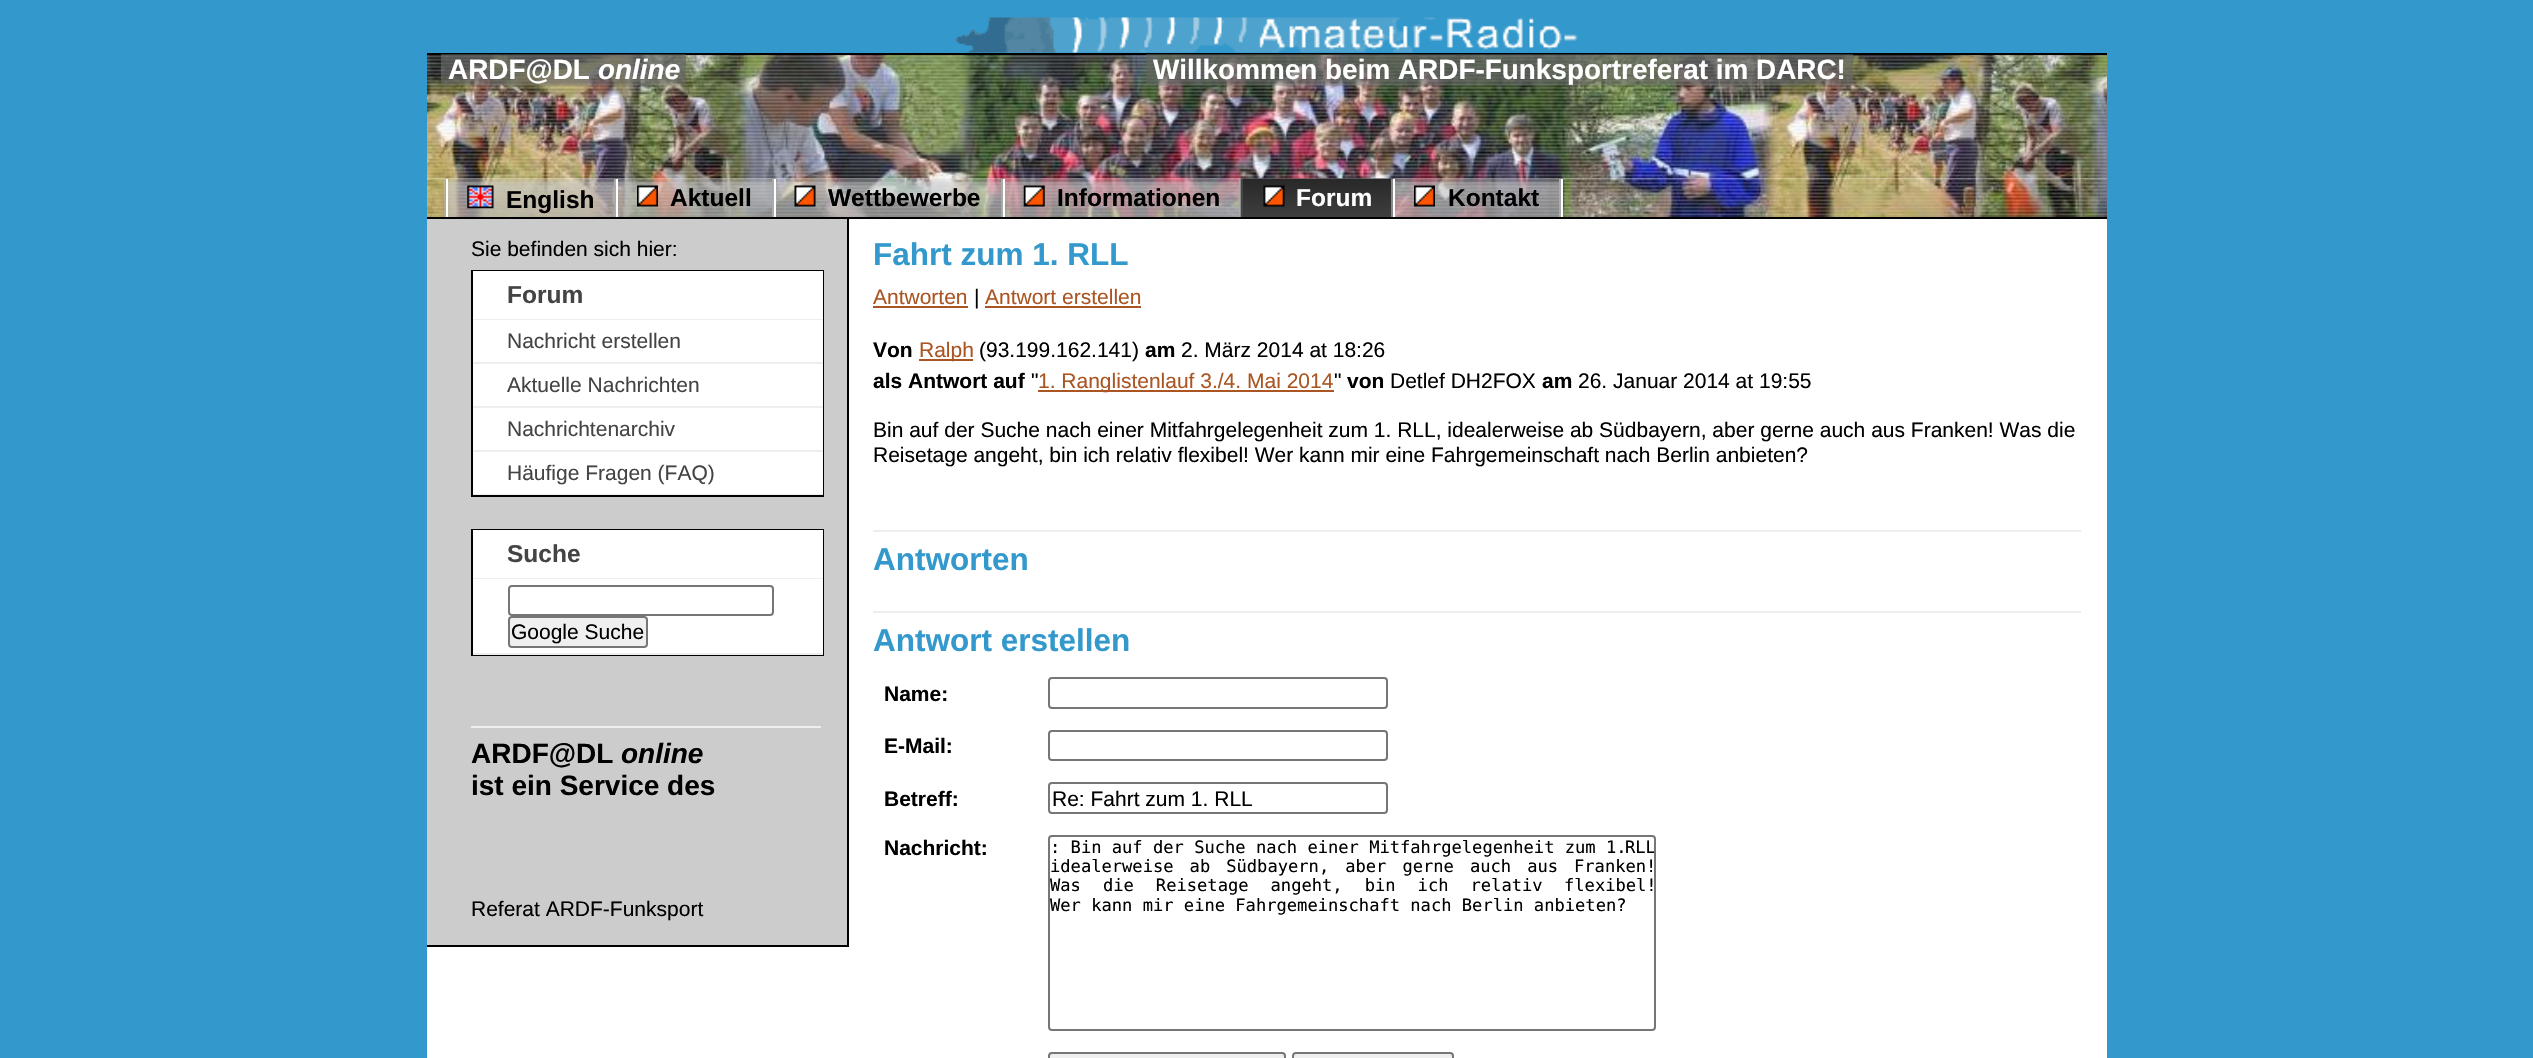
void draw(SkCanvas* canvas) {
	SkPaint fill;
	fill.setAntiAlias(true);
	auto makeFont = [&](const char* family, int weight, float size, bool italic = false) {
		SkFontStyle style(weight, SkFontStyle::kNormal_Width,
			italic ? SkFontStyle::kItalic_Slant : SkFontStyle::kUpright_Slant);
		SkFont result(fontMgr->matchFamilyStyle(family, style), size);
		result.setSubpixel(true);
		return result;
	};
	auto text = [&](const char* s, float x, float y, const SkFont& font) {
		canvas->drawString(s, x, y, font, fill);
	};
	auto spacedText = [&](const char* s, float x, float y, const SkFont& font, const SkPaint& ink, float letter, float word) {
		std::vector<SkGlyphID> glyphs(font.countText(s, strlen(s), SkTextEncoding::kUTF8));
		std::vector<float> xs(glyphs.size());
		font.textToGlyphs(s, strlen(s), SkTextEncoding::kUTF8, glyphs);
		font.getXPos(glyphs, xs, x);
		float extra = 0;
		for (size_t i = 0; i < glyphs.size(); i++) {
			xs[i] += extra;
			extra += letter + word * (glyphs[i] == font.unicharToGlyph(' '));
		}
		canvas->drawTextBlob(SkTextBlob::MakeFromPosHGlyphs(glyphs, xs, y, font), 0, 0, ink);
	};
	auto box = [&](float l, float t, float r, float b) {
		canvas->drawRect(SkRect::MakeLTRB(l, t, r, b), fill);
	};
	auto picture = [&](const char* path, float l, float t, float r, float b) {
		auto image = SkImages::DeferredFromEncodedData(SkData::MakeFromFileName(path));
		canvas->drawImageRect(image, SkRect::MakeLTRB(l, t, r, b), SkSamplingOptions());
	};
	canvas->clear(0xFF3399CC);
	fill.setColor(0xFFFFFFFF);
	box(427, 178, 2107, 1058);
	picture("image0.png", 955, 17, 1578, 53);
	picture("image1.png", 427, 55, 2107, 179);
	fill.setColor(0xFF000000);
	box(427, 53, 2107, 55);
	picture("image2.png", 441, 54, 686, 86);
	picture("image3.png", 1146, 54, 1854, 86);
	picture("image4.png", 427, 178, 2107, 217);
	box(427, 217, 2107, 219);
	picture("image5.png", 444, 178, 1563, 217);
	fill.setColor(0xFFFFFFFF);
	box(1561, 179, 1563, 217);
	fill.setColor(0xFFAAAAAA);
	box(445, 179, 446, 217);
	box(614, 179, 616, 217);
	fill.setColor(0xFFFFFFFF);
	box(446, 179, 448, 217);
	picture("image6.png", 467, 185, 494, 209);
	fill.setColor(0xFFAAAAAA);
	box(772, 179, 774, 217);
	fill.setColor(0xFFFFFFFF);
	box(616, 179, 618, 217);
	picture("image7.png", 637, 185, 658, 207);
	fill.setColor(0xFFAAAAAA);
	box(1001, 179, 1003, 217);
	fill.setColor(0xFFFFFFFF);
	box(774, 179, 776, 217);
	picture("image8.png", 794, 185, 816, 207);
	fill.setColor(0xFFAAAAAA);
	box(1239, 179, 1241, 217);
	fill.setColor(0xFFFFFFFF);
	box(1003, 179, 1005, 217);
	picture("image9.png", 1023, 185, 1045, 207);
	picture("image10.png", 1240, 178, 1393, 217);
	fill.setColor(0xFF888888);
	box(1391, 179, 1393, 217);
	fill.setColor(0xFF444444);
	box(1241, 179, 1243, 217);
	picture("image11.png", 1263, 185, 1285, 207);
	fill.setColor(0xFFAAAAAA);
	box(1559, 179, 1561, 217);
	fill.setColor(0xFFFFFFFF);
	box(1393, 179, 1395, 217);
	picture("image12.png", 1414, 185, 1435, 207);
	fill.setColor(0xFFCCCCCC);
	box(427, 219, 847, 945);
	fill.setColor(0xFF000000);
	box(847, 219, 849, 947);
	box(427, 945, 849, 947);
	fill.setStyle(SkPaint::kStroke_Style);
	fill.setStrokeWidth(2);
	canvas->drawRect(SkRect::MakeLTRB(472, 271, 823, 496), fill);
	fill.setStyle(SkPaint::kFill_Style);
	fill.setColor(0xFFFFFFFF);
	box(473, 271, 823, 319);
	fill.setColor(0xFFEEEEEE);
	box(473, 319, 823, 320);
	fill.setColor(0xFFFFFFFF);
	box(473, 320, 823, 362);
	fill.setColor(0xFFEEEEEE);
	box(473, 362, 823, 364);
	fill.setColor(0xFFFFFFFF);
	box(473, 364, 823, 406);
	fill.setColor(0xFFEEEEEE);
	box(473, 406, 823, 408);
	fill.setColor(0xFFFFFFFF);
	box(473, 408, 823, 450);
	fill.setColor(0xFFEEEEEE);
	box(473, 450, 823, 452);
	fill.setColor(0xFFFFFFFF);
	box(473, 452, 823, 494);
	fill.setColor(0xFFEEEEEE);
	box(473, 494, 823, 495);
	fill.setStyle(SkPaint::kStroke_Style);
	fill.setColor(0xFF000000);
	canvas->drawRect(SkRect::MakeLTRB(472, 530, 823, 655), fill);
	fill.setStyle(SkPaint::kFill_Style);
	fill.setColor(0xFFFFFFFF);
	box(473, 530, 823, 578);
	fill.setColor(0xFFEEEEEE);
	box(473, 578, 823, 579);
	fill.setColor(0xFFFFFFFF);
	box(473, 579, 823, 653);
	fill.setColor(0xFFEEEEEE);
	box(473, 653, 823, 655);
	fill.setStyle(SkPaint::kStroke_Style);
	fill.setColor(0xFF767676);
	canvas->drawRoundRect(SkRect::MakeLTRB(509, 586, 773, 615), 3, 3, fill);
	fill.setStyle(SkPaint::kFill_Style);
	fill.setColor(0xFFEFEFEF);
	canvas->drawRoundRect(SkRect::MakeLTRB(509, 617, 647, 647), 3, 3, fill);
	fill.setStyle(SkPaint::kStroke_Style);
	fill.setColor(0xFF767676);
	canvas->drawRoundRect(SkRect::MakeLTRB(509, 617, 647, 647), 3, 3, fill);
	fill.setStyle(SkPaint::kFill_Style);
	fill.setColor(0xFFEEEEEE);
	box(471, 726, 821, 728);
	fill.setColor(0xFFAA5522);
	box(873, 306, 968, 308);
	box(985, 306, 1141, 308);
	box(919, 359, 973, 361);
	box(1038, 390, 1334, 392);
	fill.setColor(0xFFEEEEEE);
	box(873, 530, 2081, 532);
	box(873, 611, 2081, 613);
	fill.setStyle(SkPaint::kStroke_Style);
	fill.setColor(0xFF767676);
	canvas->drawRoundRect(SkRect::MakeLTRB(1049, 678, 1387, 708), 3, 3, fill);
	canvas->drawRoundRect(SkRect::MakeLTRB(1049, 731, 1387, 760), 3, 3, fill);
	canvas->drawRoundRect(SkRect::MakeLTRB(1049, 783, 1387, 813), 3, 3, fill);
	canvas->drawRoundRect(SkRect::MakeLTRB(1049, 836, 1655, 1030), 3, 3, fill);
	fill.setStyle(SkPaint::kFill_Style);
	fill.setColor(0xFFEFEFEF);
	canvas->drawRoundRect(SkRect::MakeLTRB(1049, 1053, 1285, 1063), 3, 3, fill);
	fill.setStyle(SkPaint::kStroke_Style);
	fill.setColor(0xFF767676);
	canvas->drawRoundRect(SkRect::MakeLTRB(1049, 1053, 1285, 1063), 3, 3, fill);
	fill.setStyle(SkPaint::kFill_Style);
	fill.setColor(0xFFEFEFEF);
	canvas->drawRoundRect(SkRect::MakeLTRB(1293, 1053, 1453, 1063), 3, 3, fill);
	fill.setStyle(SkPaint::kStroke_Style);
	fill.setColor(0xFF767676);
	canvas->drawRoundRect(SkRect::MakeLTRB(1293, 1053, 1453, 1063), 3, 3, fill);
	auto font1 = makeFont("Liberation Sans", 700, 27.9f);
	fill.setStyle(SkPaint::kFill_Style);
	fill.setColor(0xFFFFFFFF);
	text("ARDF@DL", 448, 79, font1);
	auto font2 = makeFont("Liberation Sans", 700, 27.9f, true);
	text("online", 598, 79, font2);
	text("Willkommen beim ARDF-Funksportreferat im DARC!", 1153, 79, font1);
	auto font3 = makeFont("Liberation Sans", 700, 24.5f);
	fill.setColor(0xFF000000);
	text("English", 506, 208, font3);
	text("Aktuell", 670, 206, font3);
	text("Wettbewerbe", 828, 206, font3);
	text("Informationen", 1057, 206, font3);
	fill.setColor(0xFFFFFFFF);
	text("Forum", 1296, 206, font3);
	fill.setColor(0xFF000000);
	text("Kontakt", 1448, 206, font3);
	auto font4 = makeFont("Liberation Sans", 400, 21);
	text("Sie befinden sich hier:", 471, 256, font4);
	fill.setColor(0xFF444444);
	text("Forum", 507, 303, font3);
	text("Nachricht erstellen", 507, 348, font4);
	text("Aktuelle Nachrichten", 507, 392, font4);
	text("Nachrichtenarchiv", 507, 436, font4);
	text("Häufige Fragen (FAQ)", 507, 480, font4);
	text("Suche", 507, 562, font3);
	fill.setColor(0xFF000000);
	text("Google Suche", 511, 639, font4);
	auto font5 = makeFont("Liberation Sans", 700, 28);
	text("ARDF@DL", 471, 763, font5);
	auto font6 = makeFont("Liberation Sans", 700, 28, true);
	text("online", 621, 763, font6);
	text("ist ein Service des", 471, 795, font5);
	text("Referat ARDF-Funksport", 471, 916, font4);
	auto font7 = makeFont("Liberation Sans", 700, 31.5f);
	fill.setColor(0xFF3399CC);
	text("Fahrt zum 1. RLL", 873, 265, font7);
	fill.setColor(0xFFAA5522);
	text("Antworten", 873, 304, font4);
	fill.setColor(0xFF000000);
	text("|", 974, 304, font4);
	fill.setColor(0xFFAA5522);
	text("Antwort erstellen", 985, 304, font4);
	auto font8 = makeFont("Liberation Sans", 700, 21);
	fill.setColor(0xFF000000);
	text("Von", 873, 357, font8);
	fill.setColor(0xFFAA5522);
	text("Ralph", 919, 357, font4);
	fill.setColor(0xFF000000);
	text("(93.199.162.141)", 979, 357, font4);
	text("am", 1145, 357, font8);
	text("2. März 2014 at 18:26", 1181, 357, font4);
	text("als Antwort auf", 873, 388, font8);
	text("\"", 1031, 388, font4);
	fill.setColor(0xFFAA5522);
	text("1. Ranglistenlauf 3./4. Mai 2014", 1038, 388, font4);
	fill.setColor(0xFF000000);
	text("\"", 1334, 388, font4);
	text("von", 1347, 388, font8);
	text("Detlef DH2FOX", 1390, 388, font4);
	text("am", 1542, 388, font8);
	text("26. Januar 2014 at 19:55", 1578, 388, font4);
	text("Bin auf der Suche nach einer Mitfahrgelegenheit zum 1. RLL, idealerweise ab Südbayern, aber gerne auch aus Franken! Was die", 873, 437, font4);
	text("Reisetage angeht, bin ich relativ flexibel! Wer kann mir eine Fahrgemeinschaft nach Berlin anbieten?", 873, 462, font4);
	fill.setColor(0xFF3399CC);
	text("Antworten", 873, 570, font7);
	text("Antwort erstellen", 873, 651, font7);
	fill.setColor(0xFF000000);
	text("Name:", 884, 701, font8);
	text("E-Mail:", 884, 753, font8);
	text("Betreff:", 884, 806, font8);
	text("Re: Fahrt zum 1. RLL", 1052, 806, font4);
	text("Nachricht:", 884, 855, font8);
	auto font9 = makeFont("DejaVu Sans Mono", 400, 17.1f);
	text(": Bin auf der Suche nach einer Mitfahrgelegenheit zum 1.", 1050, 853, font9);
	canvas->save();
	canvas->clipRect(SkRect::MakeLTRB(1050, 837, 1654, 1029));
	text("RLL", 1625, 853, font9);
	canvas->restore();
	spacedText("idealerweise ab Südbayern, aber gerne auch aus", 1050, 872, font9, fill, 0, 5.75f);
	text("Franken!", 1574, 872, font9);
	spacedText("Was die Reisetage angeht, bin ich relativ", 1050, 891, font9, fill, 0, 11.75f);
	text("flexibel!", 1564, 891, font9);
	text("Wer kann mir eine Fahrgemeinschaft nach Berlin anbieten?", 1050, 911, font9);
}
